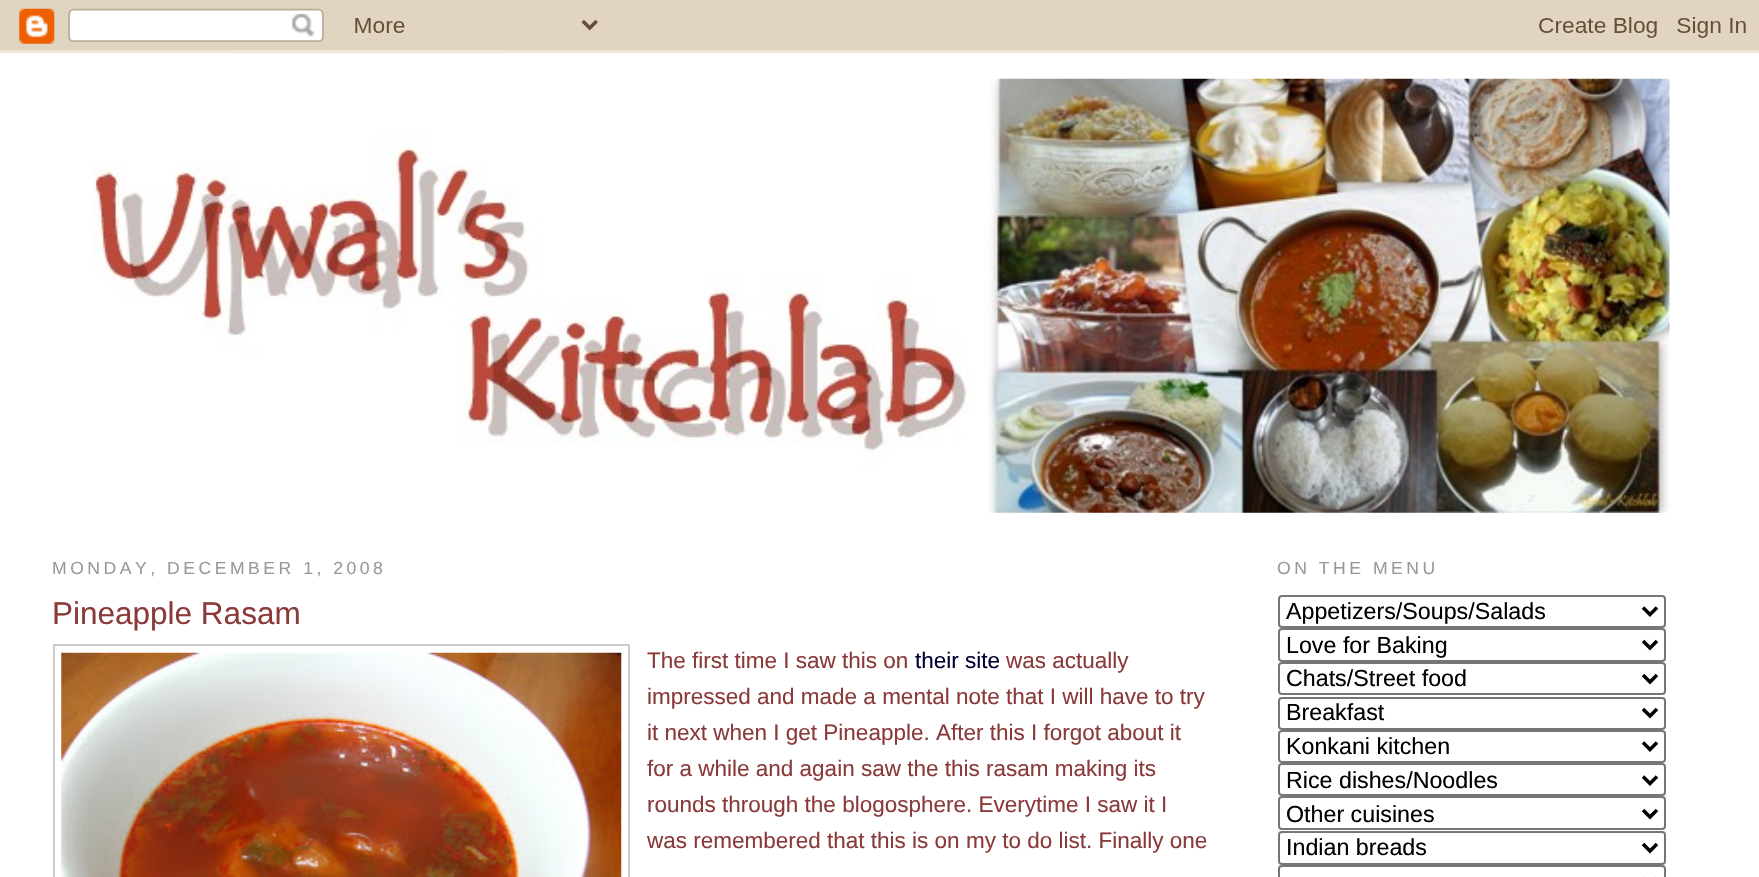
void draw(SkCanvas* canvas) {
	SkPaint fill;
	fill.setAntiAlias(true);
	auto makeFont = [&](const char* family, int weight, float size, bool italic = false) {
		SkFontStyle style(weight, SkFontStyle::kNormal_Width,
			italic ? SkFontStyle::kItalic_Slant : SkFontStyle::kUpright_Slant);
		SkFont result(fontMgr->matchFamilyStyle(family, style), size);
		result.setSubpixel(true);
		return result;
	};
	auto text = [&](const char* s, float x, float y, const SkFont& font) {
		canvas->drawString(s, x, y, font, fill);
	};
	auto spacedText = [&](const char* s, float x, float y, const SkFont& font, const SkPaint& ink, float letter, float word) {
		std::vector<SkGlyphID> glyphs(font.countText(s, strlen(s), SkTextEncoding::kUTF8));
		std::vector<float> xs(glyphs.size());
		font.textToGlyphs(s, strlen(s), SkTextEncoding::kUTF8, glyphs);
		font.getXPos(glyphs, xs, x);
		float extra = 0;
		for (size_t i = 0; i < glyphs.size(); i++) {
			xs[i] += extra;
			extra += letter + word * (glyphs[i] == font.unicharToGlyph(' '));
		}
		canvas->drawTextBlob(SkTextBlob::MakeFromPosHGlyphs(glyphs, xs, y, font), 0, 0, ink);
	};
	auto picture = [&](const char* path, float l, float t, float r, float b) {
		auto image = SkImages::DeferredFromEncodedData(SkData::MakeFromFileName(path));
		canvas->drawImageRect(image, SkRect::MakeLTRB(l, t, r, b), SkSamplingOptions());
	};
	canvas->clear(0xFFFFFFFF);
	picture("image0.png", 0, 0, 1759, 53);
	picture("image1.png", 93, 78, 1670, 513);
	fill.setStyle(SkPaint::kStroke_Style);
	fill.setStrokeWidth(2);
	fill.setColor(0xFFCCCCCC);
	canvas->drawRect(SkRect::MakeLTRB(54, 645, 629, 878), fill);
	picture("image2.png", 61, 652, 622, 877);
	fill.setColor(0xFF767676);
	canvas->drawRoundRect(SkRect::MakeLTRB(1279, 596, 1665, 627), 3, 3, fill);
	fill.setStrokeWidth(3.5f);
	fill.setColor(0xFF000000);
	canvas->drawPath(SkPathBuilder().moveTo(1643, 607.5f).lineTo(1650, 614.5f).lineTo(1657, 607.5f).detach(), fill);
	fill.setStrokeWidth(2);
	fill.setColor(0xFF767676);
	canvas->drawRoundRect(SkRect::MakeLTRB(1279, 629, 1665, 661), 3, 3, fill);
	fill.setStrokeWidth(3.5f);
	fill.setColor(0xFF000000);
	canvas->drawPath(SkPathBuilder().moveTo(1643, 641).lineTo(1650, 648).lineTo(1657, 641).detach(), fill);
	fill.setStrokeWidth(2);
	fill.setColor(0xFF767676);
	canvas->drawRoundRect(SkRect::MakeLTRB(1279, 663, 1665, 694), 3, 3, fill);
	fill.setStrokeWidth(3.5f);
	fill.setColor(0xFF000000);
	canvas->drawPath(SkPathBuilder().moveTo(1643, 675).lineTo(1650, 682).lineTo(1657, 675).detach(), fill);
	fill.setStrokeWidth(2);
	fill.setColor(0xFF767676);
	canvas->drawRoundRect(SkRect::MakeLTRB(1279, 698, 1665, 729), 3, 3, fill);
	fill.setStrokeWidth(3.5f);
	fill.setColor(0xFF000000);
	canvas->drawPath(SkPathBuilder().moveTo(1643, 709).lineTo(1650, 716).lineTo(1657, 709).detach(), fill);
	fill.setStrokeWidth(2);
	fill.setColor(0xFF767676);
	canvas->drawRoundRect(SkRect::MakeLTRB(1279, 731, 1665, 762), 3, 3, fill);
	fill.setStrokeWidth(3.5f);
	fill.setColor(0xFF000000);
	canvas->drawPath(SkPathBuilder().moveTo(1643, 742.5f).lineTo(1650, 749.5f).lineTo(1657, 742.5f).detach(), fill);
	fill.setStrokeWidth(2);
	fill.setColor(0xFF767676);
	canvas->drawRoundRect(SkRect::MakeLTRB(1279, 764, 1665, 795), 3, 3, fill);
	fill.setStrokeWidth(3.5f);
	fill.setColor(0xFF000000);
	canvas->drawPath(SkPathBuilder().moveTo(1643, 776.5f).lineTo(1650, 783.5f).lineTo(1657, 776.5f).detach(), fill);
	fill.setStrokeWidth(2);
	fill.setColor(0xFF767676);
	canvas->drawRoundRect(SkRect::MakeLTRB(1279, 797, 1665, 829), 3, 3, fill);
	fill.setStrokeWidth(3.5f);
	fill.setColor(0xFF000000);
	canvas->drawPath(SkPathBuilder().moveTo(1643, 810).lineTo(1650, 817).lineTo(1657, 810).detach(), fill);
	fill.setStrokeWidth(2);
	fill.setColor(0xFF767676);
	canvas->drawRoundRect(SkRect::MakeLTRB(1279, 832, 1665, 864), 3, 3, fill);
	fill.setStrokeWidth(3.5f);
	fill.setColor(0xFF000000);
	canvas->drawPath(SkPathBuilder().moveTo(1643, 844).lineTo(1650, 851).lineTo(1657, 844).detach(), fill);
	fill.setStrokeWidth(2);
	fill.setColor(0xFF767676);
	canvas->drawRoundRect(SkRect::MakeLTRB(1279, 866, 1665, 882), 3, 3, fill);
	fill.setStrokeWidth(3.5f);
	fill.setColor(0xFF000000);
	canvas->drawPath(SkPathBuilder().moveTo(1643, 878).lineTo(1650, 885).lineTo(1657, 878).detach(), fill);
	auto font1 = makeFont("Liberation Sans", 400, 17.6f);
	fill.setStyle(SkPaint::kFill_Style);
	fill.setColor(0xFF999999);
	spacedText("MONDAY, DECEMBER 1, 2008", 52, 574, font1, fill, 3.5f, 0);
	auto font2 = makeFont("Liberation Sans", 400, 31.5f);
	fill.setColor(0xFF8B3A3A);
	text("Pineapple Rasam", 52, 624, font2);
	auto font3 = makeFont("Liberation Sans", 400, 22.5f);
	text("The first time I saw this on", 647, 668, font3);
	fill.setColor(0xFF000033);
	text("their site", 915, 668, font3);
	fill.setColor(0xFF8B3A3A);
	text("was actually", 1006, 668, font3);
	text("impressed and made a mental note that I will have to try", 647, 704, font3);
	text("it next when I get Pineapple. After this I forgot about it", 647, 740, font3);
	text("for a while and again saw the this rasam making its", 647, 776, font3);
	text("rounds through the blogosphere. Everytime I saw it I", 647, 812, font3);
	text("was remembered that this is on my to do list. Finally one", 647, 848, font3);
	fill.setColor(0xFF999999);
	spacedText("ON THE MENU", 1277, 574, font1, fill, 3.5f, 0);
	auto font4 = makeFont("Liberation Sans", 400, 23.25f);
	fill.setColor(0xFF000000);
	text("Appetizers/Soups/Salads", 1286, 619, font4);
	text("Love for Baking", 1286, 653, font4);
	text("Chats/Street food", 1286, 686, font4);
	text("Breakfast", 1286, 720, font4);
	text("Konkani kitchen", 1286, 754, font4);
	text("Rice dishes/Noodles", 1286, 788, font4);
	text("Other cuisines", 1286, 822, font4);
	text("Indian breads", 1286, 855, font4);
}
